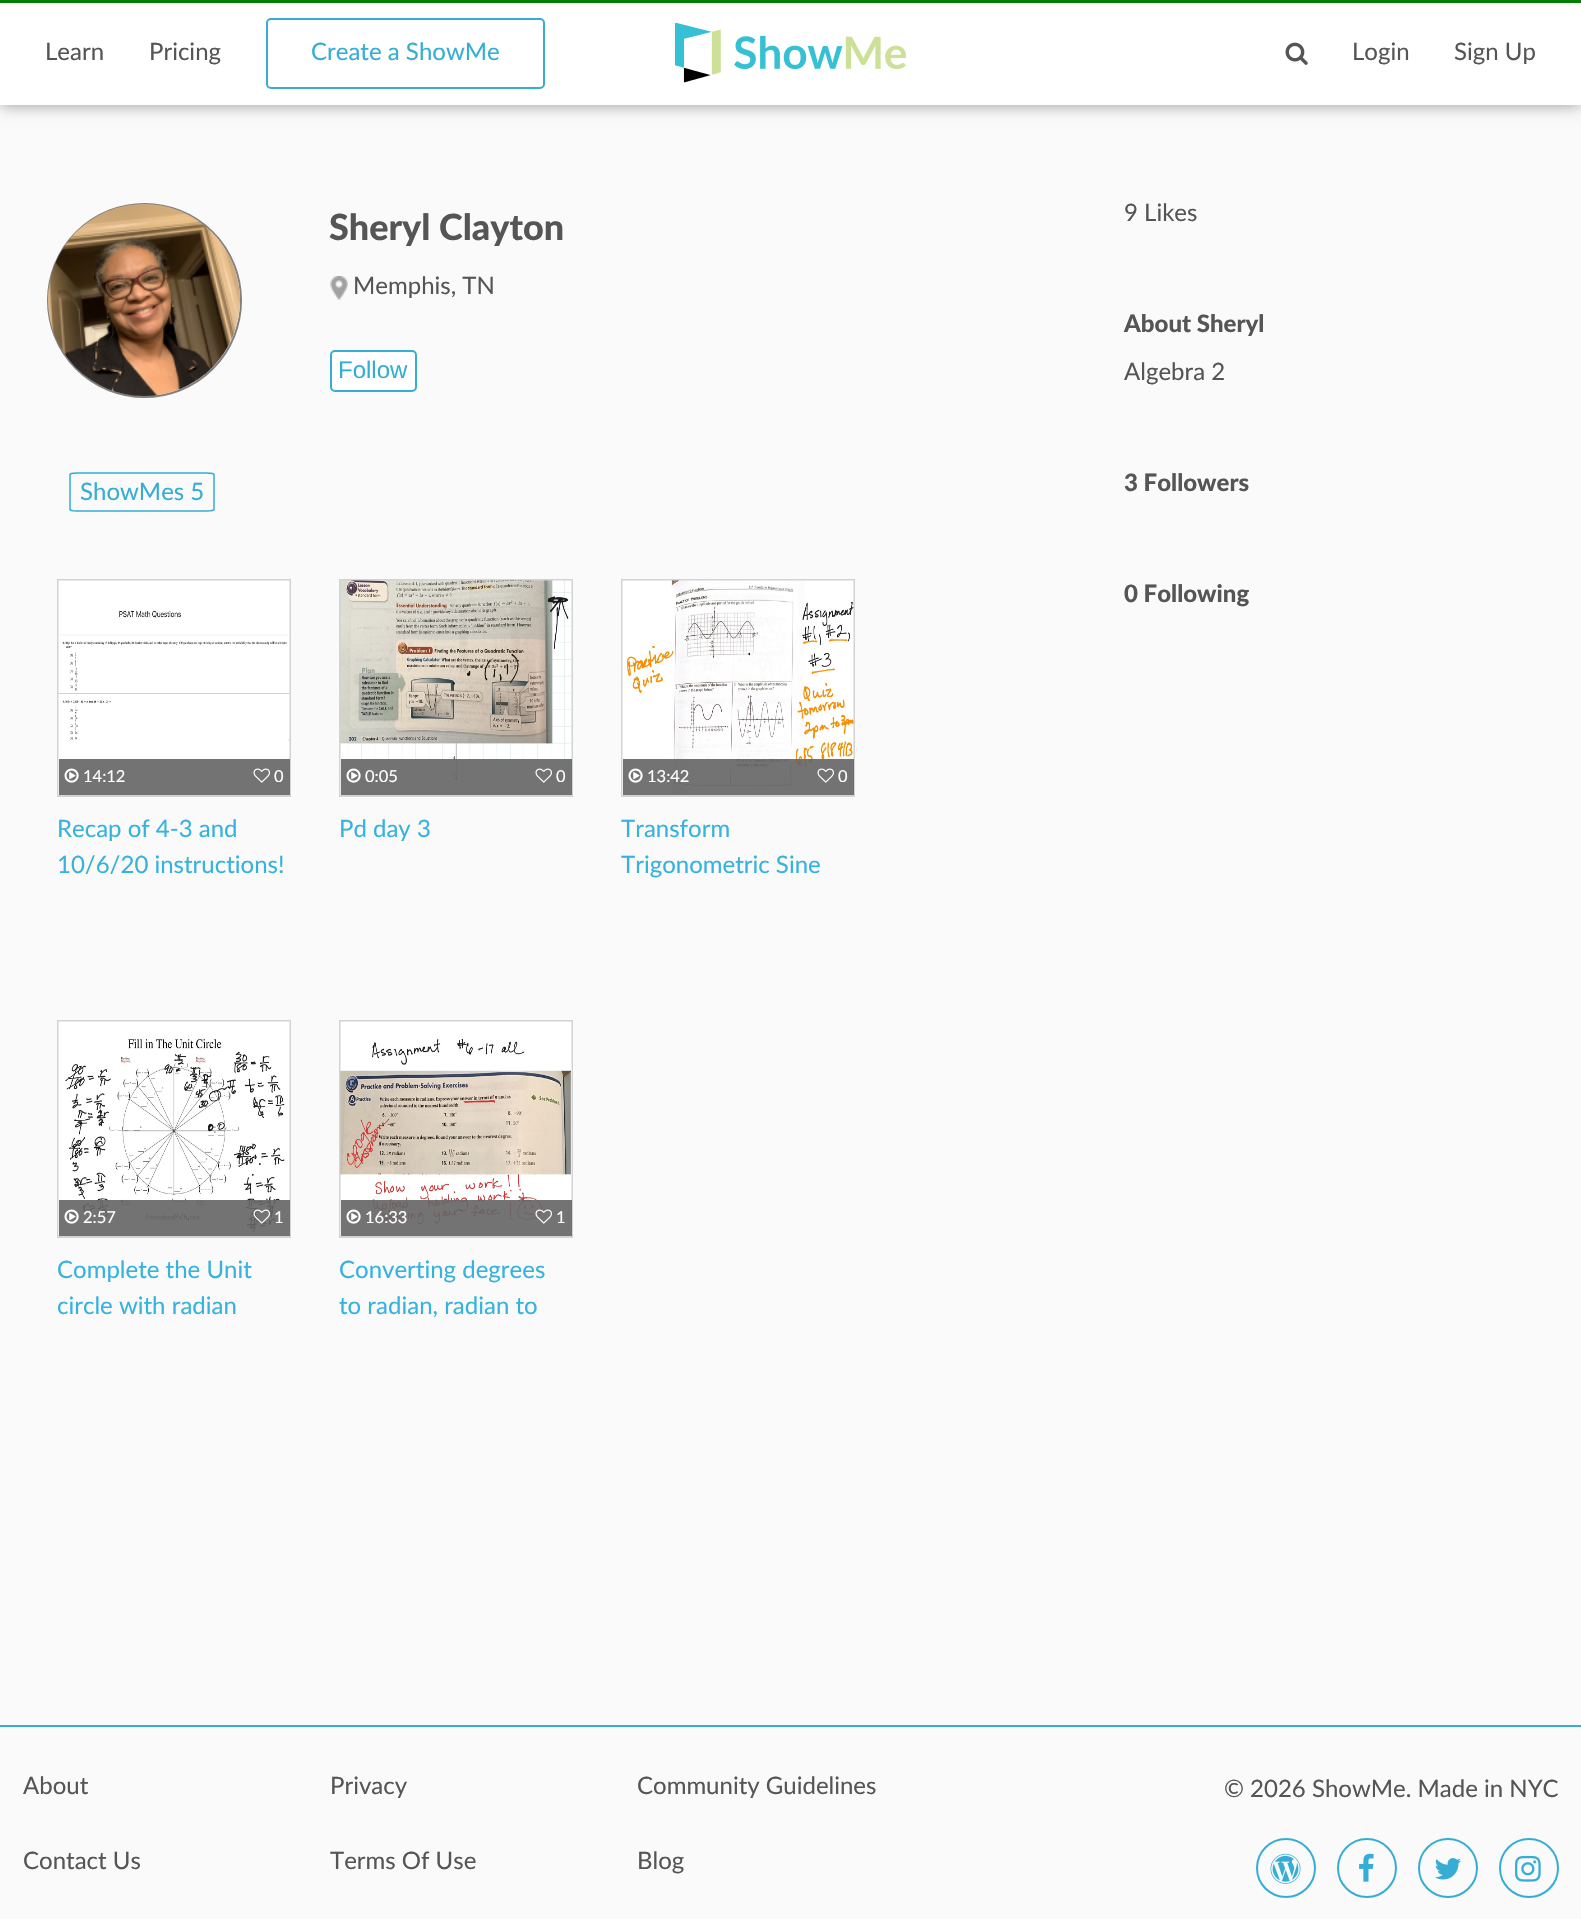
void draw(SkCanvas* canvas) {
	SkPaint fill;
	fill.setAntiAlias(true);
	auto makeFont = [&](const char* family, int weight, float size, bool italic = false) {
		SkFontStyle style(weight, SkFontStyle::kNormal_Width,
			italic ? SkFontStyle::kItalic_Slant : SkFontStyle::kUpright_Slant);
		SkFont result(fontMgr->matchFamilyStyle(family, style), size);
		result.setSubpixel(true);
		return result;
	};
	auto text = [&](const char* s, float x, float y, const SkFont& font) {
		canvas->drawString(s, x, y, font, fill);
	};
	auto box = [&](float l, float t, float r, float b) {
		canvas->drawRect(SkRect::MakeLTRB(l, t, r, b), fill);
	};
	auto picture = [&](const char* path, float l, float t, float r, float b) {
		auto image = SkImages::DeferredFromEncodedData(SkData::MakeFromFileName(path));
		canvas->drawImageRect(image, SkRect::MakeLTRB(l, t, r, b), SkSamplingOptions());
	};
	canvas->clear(0xFFFAFAFA);
	fill.setColor(0x66000000);
	fill.setMaskFilter(SkMaskFilter::MakeBlur(kNormal_SkBlurStyle, 7.5f));
	canvas->drawRect(SkRect::MakeLTRB(0, 0, 1581, 105), fill);
	fill.setMaskFilter(nullptr);
	fill.setColor(0xFF008000);
	box(0, 0, 1581, 3);
	fill.setColor(0xFFFFFFFF);
	box(0, 3, 1581, 105);
	fill.setStyle(SkPaint::kStroke_Style);
	fill.setStrokeWidth(2);
	fill.setColor(0xFF35ADD4);
	canvas->drawRoundRect(SkRect::MakeLTRB(267, 19, 544, 88), 4, 4, fill);
	picture("image0.png", 675, 23, 906, 83);
	picture("image1.png", 1285, 42, 1308, 65);
	fill.setColor(0xFF808080);
	canvas->drawCircle(144.5f, 300.5f, 96.5f, fill);
	picture("image2.png", 48, 204, 240, 396);
	picture("image3.png", 330, 276, 348, 300);
	fill.setStyle(SkPaint::kFill_Style);
	fill.setColor(0xFFFFFFFF);
	canvas->drawRoundRect(SkRect::MakeLTRB(331, 351, 416, 391), 4, 4, fill);
	fill.setStyle(SkPaint::kStroke_Style);
	fill.setColor(0xFF35ADD4);
	canvas->drawRoundRect(SkRect::MakeLTRB(331, 351, 416, 391), 4, 4, fill);
	fill.setStrokeWidth(1.5f);
	canvas->drawPath(SkPathBuilder().moveTo(76.5f, 473).lineTo(207, 473).cubicTo(211, 473, 214, 474, 214, 474.5f).lineTo(214, 509.5f).cubicTo(214, 510, 211, 511, 207, 511).lineTo(76.5f, 511).cubicTo(72.5f, 511, 70, 510, 70, 509.5f).lineTo(70, 474.5f).cubicTo(70, 474, 72.5f, 473, 76.5f, 473).close().detach(), fill);
	fill.setStrokeWidth(2);
	fill.setColor(0xFFD3D3D3);
	canvas->drawRect(SkRect::MakeLTRB(58, 580, 290, 796), fill);
	picture("image4.png", 58, 580, 290, 795);
	fill.setStyle(SkPaint::kFill_Style);
	fill.setColor(0xE6646464);
	box(59, 759, 290, 795);
	picture("image5.png", 64, 768, 79, 783);
	picture("image6.png", 253, 768, 270, 783);
	fill.setStyle(SkPaint::kStroke_Style);
	fill.setColor(0xFFD3D3D3);
	canvas->drawRect(SkRect::MakeLTRB(340, 580, 572, 796), fill);
	picture("image7.png", 340, 580, 572, 795);
	fill.setStyle(SkPaint::kFill_Style);
	fill.setColor(0xE6646464);
	box(341, 759, 572, 795);
	picture("image8.png", 346, 768, 361, 783);
	picture("image9.png", 535, 768, 552, 783);
	fill.setStyle(SkPaint::kStroke_Style);
	fill.setColor(0xFFD3D3D3);
	canvas->drawRect(SkRect::MakeLTRB(622, 580, 854, 796), fill);
	picture("image10.png", 622, 580, 854, 795);
	fill.setStyle(SkPaint::kFill_Style);
	fill.setColor(0xE6646464);
	box(623, 759, 854, 795);
	picture("image5.png", 628, 768, 643, 783);
	picture("image6.png", 817, 768, 834, 783);
	fill.setStyle(SkPaint::kStroke_Style);
	fill.setColor(0xFFD3D3D3);
	canvas->drawRect(SkRect::MakeLTRB(58, 1021, 290, 1237), fill);
	picture("image11.png", 58, 1021, 290, 1236);
	fill.setStyle(SkPaint::kFill_Style);
	fill.setColor(0xE6646464);
	box(59, 1200, 290, 1236);
	picture("image5.png", 64, 1209, 79, 1224);
	picture("image12.png", 253, 1209, 270, 1224);
	fill.setStyle(SkPaint::kStroke_Style);
	fill.setColor(0xFFD3D3D3);
	canvas->drawRect(SkRect::MakeLTRB(340, 1021, 572, 1237), fill);
	picture("image13.png", 340, 1021, 572, 1236);
	fill.setStyle(SkPaint::kFill_Style);
	fill.setColor(0xE6646464);
	box(341, 1200, 572, 1236);
	picture("image5.png", 346, 1209, 361, 1224);
	picture("image14.png", 535, 1209, 552, 1224);
	fill.setColor(0xFF35ADD4);
	box(0, 1725, 1581, 1727);
	fill.setStyle(SkPaint::kStroke_Style);
	canvas->drawCircle(1286, 1868, 29, fill);
	picture("image15.png", 1270, 1853, 1301, 1884);
	canvas->drawCircle(1367, 1868, 29, fill);
	picture("image16.png", 1359, 1853, 1374, 1882);
	canvas->drawCircle(1448, 1868, 29, fill);
	picture("image17.png", 1435, 1858, 1461, 1880);
	canvas->drawCircle(1529, 1868, 29, fill);
	picture("image18.png", 1515, 1855, 1541, 1882);
	auto font1 = makeFont("Lato", 400, 24);
	fill.setStyle(SkPaint::kFill_Style);
	fill.setColor(0xFF555555);
	text("Learn", 45, 60, font1);
	text("Pricing", 149, 60, font1);
	fill.setColor(0xFF35ADD4);
	text("Create a ShowMe", 311, 60, font1);
	fill.setColor(0xFF555555);
	text("Login", 1352, 60, font1);
	text("Sign Up", 1454, 60, font1);
	auto font2 = makeFont("Lato", 900, 36);
	text("Sheryl Clayton", 329, 240, font2);
	text("Memphis, TN", 353, 294, font1);
	auto font3 = makeFont("Liberation Sans", 400, 24);
	fill.setColor(0xFF35ADD4);
	text("Follow", 338, 378, font3);
	text("ShowMes 5", 80, 500, font1);
	auto font4 = makeFont("Lato", 400, 16.5f);
	fill.setColor(0xFFFFFFFF);
	text("14:12", 83, 782, font4);
	text("0", 274, 782, font4);
	fill.setColor(0xFF35B2DE);
	text("Recap of 4-3 and", 57, 837, font1);
	text("10/6/20 instructions!", 57, 873, font1);
	fill.setColor(0xFFFFFFFF);
	text("0:05", 365, 782, font4);
	text("0", 556, 782, font4);
	fill.setColor(0xFF35B2DE);
	text("Pd day 3", 339, 837, font1);
	fill.setColor(0xFFFFFFFF);
	text("13:42", 647, 782, font4);
	text("0", 838, 782, font4);
	fill.setColor(0xFF35B2DE);
	text("Transform", 621, 837, font1);
	text("Trigonometric Sine", 621, 873, font1);
	fill.setColor(0xFFFFFFFF);
	text("2:57", 83, 1223, font4);
	text("1", 274, 1223, font4);
	fill.setColor(0xFF35B2DE);
	text("Complete the Unit", 57, 1278, font1);
	text("circle with radian", 57, 1314, font1);
	fill.setColor(0xFFFFFFFF);
	text("16:33", 365, 1223, font4);
	text("1", 556, 1223, font4);
	fill.setColor(0xFF35B2DE);
	text("Converting degrees", 339, 1278, font1);
	text("to radian, radian to", 339, 1314, font1);
	fill.setColor(0xFF555555);
	text("9 Likes", 1124, 221, font1);
	auto font5 = makeFont("Lato", 900, 24);
	text("About Sheryl", 1124, 332, font5);
	text("Algebra 2", 1124, 380, font1);
	text("3 Followers", 1124, 491, font5);
	text("0 Following", 1124, 602, font5);
	text("About", 23, 1794, font1);
	text("Contact Us", 23, 1869, font1);
	text("Privacy", 330, 1794, font1);
	text("Terms Of Use", 330, 1869, font1);
	text("Community Guidelines", 637, 1794, font1);
	text("Blog", 637, 1869, font1);
	text("© 2026 ShowMe. Made in NYC", 1224, 1797, font1);
}
